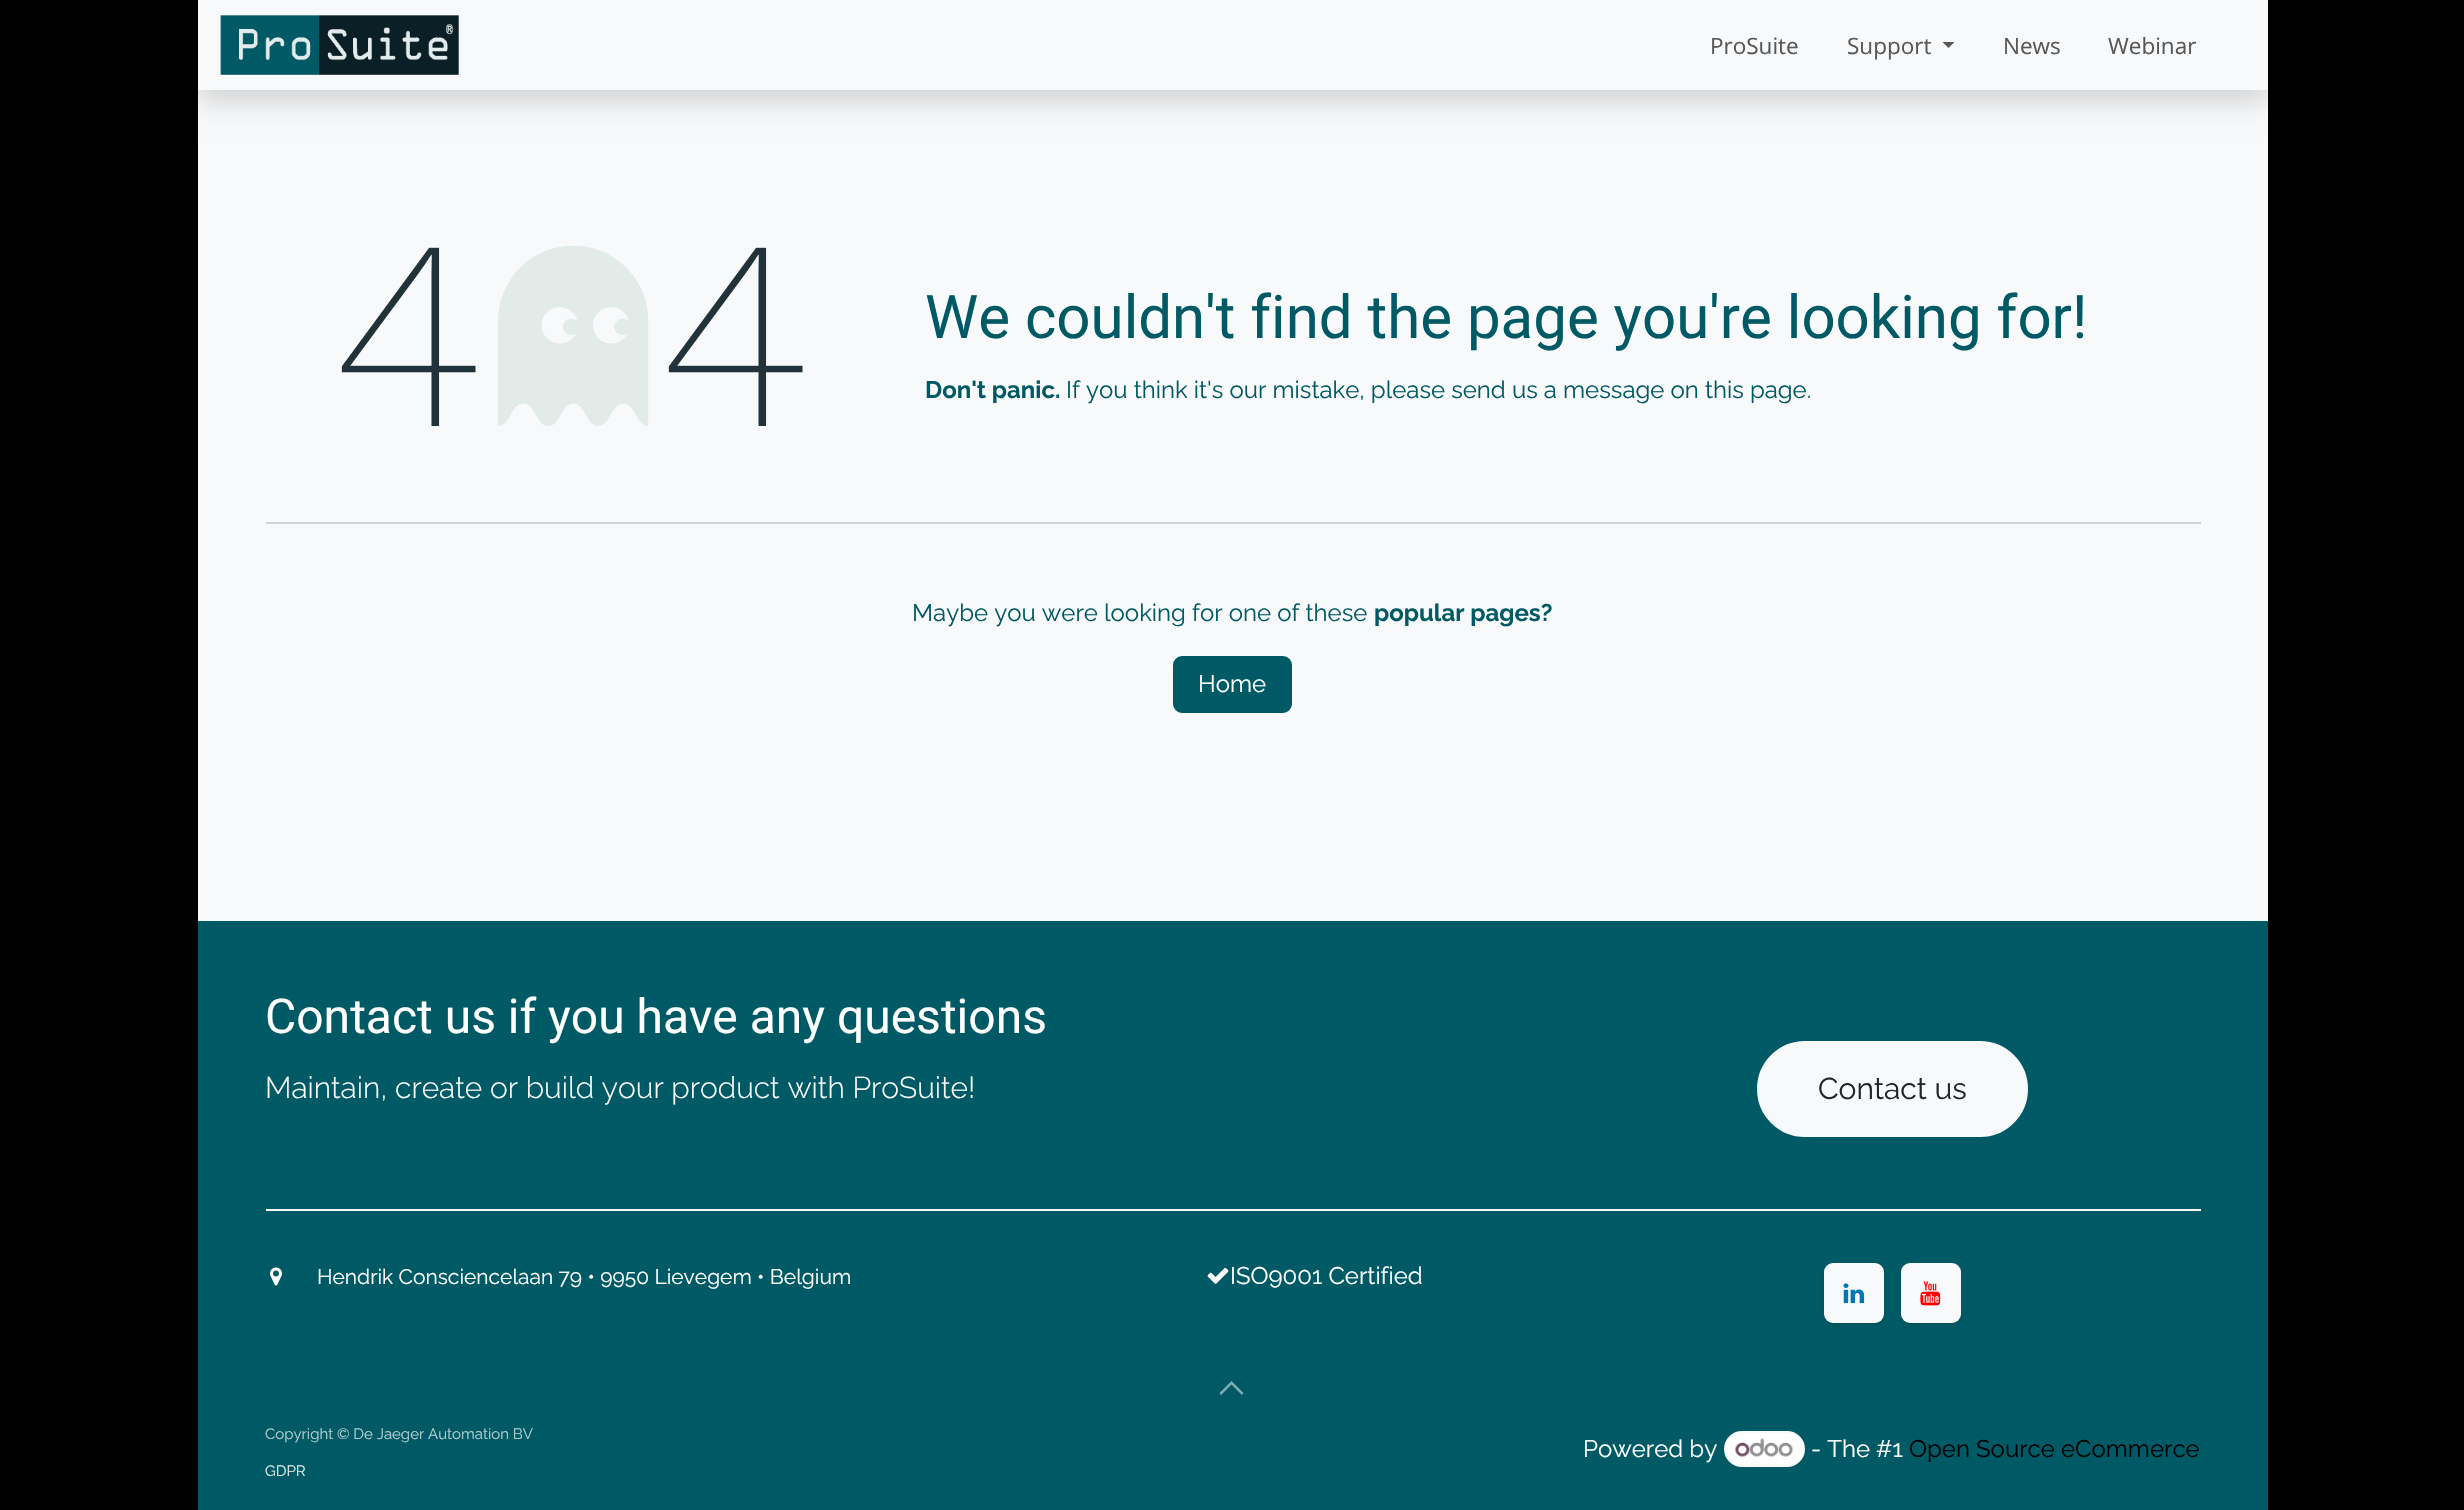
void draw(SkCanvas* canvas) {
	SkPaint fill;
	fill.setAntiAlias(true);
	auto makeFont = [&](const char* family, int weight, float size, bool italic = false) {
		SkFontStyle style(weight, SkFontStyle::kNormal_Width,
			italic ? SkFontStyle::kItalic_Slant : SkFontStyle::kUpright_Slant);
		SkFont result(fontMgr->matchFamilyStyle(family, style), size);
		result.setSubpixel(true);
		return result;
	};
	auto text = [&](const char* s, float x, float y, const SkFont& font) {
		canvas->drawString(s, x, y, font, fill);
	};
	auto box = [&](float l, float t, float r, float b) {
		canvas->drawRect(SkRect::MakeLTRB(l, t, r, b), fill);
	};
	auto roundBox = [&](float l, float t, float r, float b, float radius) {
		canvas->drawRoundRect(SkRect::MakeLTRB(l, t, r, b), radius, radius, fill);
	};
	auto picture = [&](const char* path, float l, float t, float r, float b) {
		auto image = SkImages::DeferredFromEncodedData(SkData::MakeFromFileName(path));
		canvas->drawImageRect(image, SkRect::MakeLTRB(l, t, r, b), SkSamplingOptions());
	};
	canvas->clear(0xFF000000);
	fill.setColor(0xFFF8F9FA);
	box(198, 90, 2268, 921);
	fill.setColor(0x26000000);
	fill.setMaskFilter(SkMaskFilter::MakeBlur(kNormal_SkBlurStyle, 12));
	canvas->drawRect(SkRect::MakeLTRB(198, 12, 2268, 102), fill);
	fill.setMaskFilter(nullptr);
	fill.setColor(0xFFF8F9FA);
	box(198, 0, 2268, 90);
	picture("image0.png", 220, 15, 459, 75);
	fill.setColor(0xFF575758);
	canvas->drawPath(SkPathBuilder().moveTo(1942.5f, 42).lineTo(1954.5f, 42).lineTo(1948.5f, 48).close().detach(), fill);
	picture("image1.png", 341, 246, 803, 426);
	fill.setColor(0xFFCED4DA);
	box(266, 522, 2201, 524);
	fill.setColor(0xFF005A65);
	canvas->drawRoundRect(SkRect::MakeLTRB(1174, 657, 1291, 712), 8, 8, fill);
	fill.setStyle(SkPaint::kStroke_Style);
	fill.setStrokeWidth(2);
	canvas->drawRoundRect(SkRect::MakeLTRB(1174, 657, 1291, 712), 8, 8, fill);
	fill.setStyle(SkPaint::kFill_Style);
	box(198, 921, 2268, 1510);
	fill.setColor(0xFFF8F9FA);
	canvas->drawRoundRect(SkRect::MakeLTRB(1758, 1042, 2027, 1136), 47, 47, fill);
	fill.setStyle(SkPaint::kStroke_Style);
	canvas->drawRoundRect(SkRect::MakeLTRB(1758, 1042, 2027, 1136), 47, 47, fill);
	fill.setStyle(SkPaint::kFill_Style);
	box(266, 1209, 2201, 1211);
	picture("image2.png", 270, 1267, 282, 1286);
	picture("image3.png", 1207, 1267, 1229, 1284);
	fill.setColor(0x1A000000);
	fill.setMaskFilter(SkMaskFilter::MakeBlur(kNormal_SkBlurStyle, 2));
	canvas->drawRoundRect(SkRect::MakeLTRB(1824, 1265, 1884, 1325), 9, 9, fill);
	fill.setMaskFilter(nullptr);
	fill.setColor(0xFFF8F9FA);
	roundBox(1824, 1263, 1884, 1323, 9);
	picture("image4.png", 1843, 1283, 1865, 1304);
	fill.setColor(0x1A000000);
	fill.setMaskFilter(SkMaskFilter::MakeBlur(kNormal_SkBlurStyle, 2));
	canvas->drawRoundRect(SkRect::MakeLTRB(1901, 1265, 1961, 1325), 9, 9, fill);
	fill.setMaskFilter(nullptr);
	fill.setColor(0xFFF8F9FA);
	roundBox(1901, 1263, 1961, 1323, 9);
	picture("image5.png", 1920, 1281, 1941, 1306);
	fill.setColor(0xFF80ADB2);
	canvas->drawPath(SkPathBuilder().moveTo(1231.5f, 1381).lineTo(1243.5f, 1393).lineTo(1242, 1395).lineTo(1231.5f, 1384.5f).lineTo(1221, 1395).lineTo(1219.5f, 1393).close().detach(), fill);
	fill.setColor(0xFFFEFEFF);
	canvas->drawRoundRect(SkRect::MakeLTRB(1725, 1432, 1804, 1466), 17, 17, fill);
	fill.setStyle(SkPaint::kStroke_Style);
	fill.setColor(0xFFF8F9FA);
	canvas->drawRoundRect(SkRect::MakeLTRB(1725, 1432, 1804, 1466), 17, 17, fill);
	picture("image6.png", 1735, 1438, 1793, 1457);
	auto font1 = makeFont("Open Sans", 400, 22.5f);
	fill.setStyle(SkPaint::kFill_Style);
	fill.setColor(0xFF575758);
	text("ProSuite", 1710, 54, font1);
	text("Support", 1847, 54, font1);
	text("News", 2003, 54, font1);
	text("Webinar", 2108, 54, font1);
	auto font2 = makeFont("Roboto", 400, 60);
	fill.setColor(0xFF005A65);
	text("We couldn't find the page you're looking for!", 925, 338, font2);
	auto font3 = makeFont("Raleway", 700, 24);
	text("Don't panic.", 925, 398, font3);
	auto font4 = makeFont("Raleway", 400, 24);
	text("If you think it's our mistake, please send us a message on this page.", 1066, 398, font4);
	text("Maybe you were looking for one of these", 912, 621, font4);
	text("popular pages?", 1374, 621, font3);
	fill.setColor(0xFFFFFFFF);
	text("Home", 1198, 692, font4);
	auto font5 = makeFont("Roboto", 400, 48);
	text("Contact us if you have any questions", 265, 1033, font5);
	auto font6 = makeFont("Raleway", 300, 30);
	text("Maintain, create or build your product with ProSuite!", 265, 1098, font6);
	auto font7 = makeFont("Raleway", 400, 30);
	fill.setColor(0xFF212529);
	text("Contact us", 1818, 1099, font7);
	auto font8 = makeFont("Raleway", 400, 21);
	fill.setColor(0xFFFFFFFF);
	text("Hendrik Consciencelaan 79 • 9950 Lievegem • Belgium", 317, 1284, font8);
	text("ISO9001 Certified", 1230, 1284, font4);
	auto font9 = makeFont("Raleway", 400, 15);
	fill.setColor(0xFFB3CED1);
	text("Copyright © De Jaeger Automation BV", 265, 1439, font9);
	fill.setColor(0xFFE3EBE9);
	text("GDPR", 265, 1476, font9);
	fill.setColor(0xFFFFFFFF);
	text("Powered by", 1583, 1457, font4);
	text("- The #1", 1811, 1457, font4);
	fill.setColor(0xFF000000);
	text("Open Source eCommerce", 1909, 1457, font4);
}
